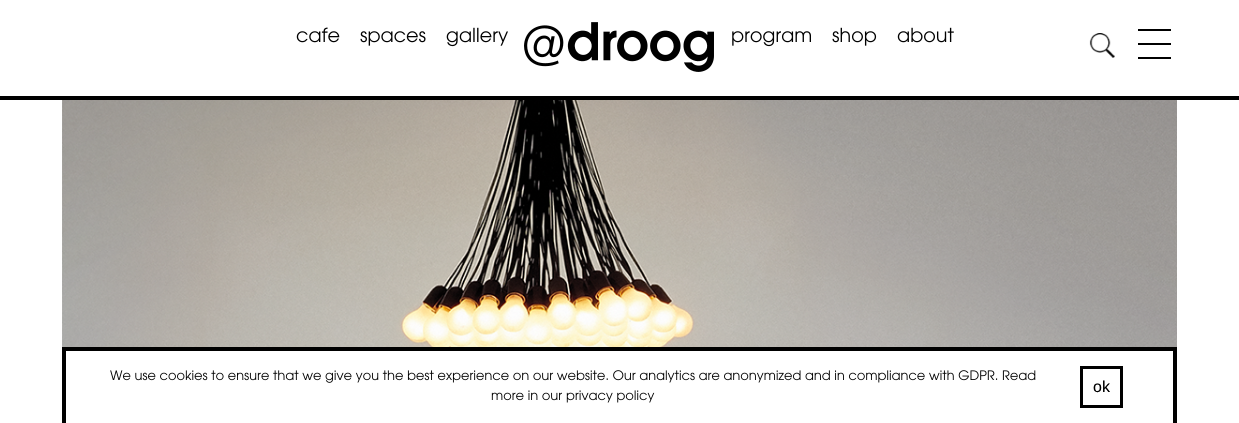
void draw(SkCanvas* canvas) {
	SkPaint fill;
	fill.setAntiAlias(true);
	auto makeFont = [&](const char* family, int weight, float size, bool italic = false) {
		SkFontStyle style(weight, SkFontStyle::kNormal_Width,
			italic ? SkFontStyle::kItalic_Slant : SkFontStyle::kUpright_Slant);
		SkFont result(fontMgr->matchFamilyStyle(family, style), size);
		result.setSubpixel(true);
		return result;
	};
	auto text = [&](const char* s, float x, float y, const SkFont& font) {
		canvas->drawString(s, x, y, font, fill);
	};
	auto box = [&](float l, float t, float r, float b) {
		canvas->drawRect(SkRect::MakeLTRB(l, t, r, b), fill);
	};
	auto picture = [&](const char* path, float l, float t, float r, float b) {
		auto image = SkImages::DeferredFromEncodedData(SkData::MakeFromFileName(path));
		canvas->drawImageRect(image, SkRect::MakeLTRB(l, t, r, b), SkSamplingOptions());
	};
	canvas->clear(0xFFFFFFFF);
	picture("image0.png", 296, 27, 340, 43);
	picture("image1.png", 360, 31, 426, 46);
	picture("image2.png", 446, 27, 508, 47);
	picture("image3.png", 524, 22, 714, 72);
	picture("image4.png", 732, 31, 811, 47);
	picture("image5.png", 832, 27, 877, 46);
	picture("image6.png", 897, 27, 954, 43);
	picture("image7.png", 1089, 33, 1115, 58);
	fill.setColor(0xFF000000);
	box(1138, 29, 1171, 31);
	box(1138, 43, 1171, 45);
	box(1138, 57, 1171, 59);
	box(0, 96, 1239, 100);
	picture("image8.png", 62, 100, 1177, 347);
	box(62, 347, 1177, 351);
	box(1173, 347, 1177, 423);
	box(62, 347, 66, 423);
	picture("image9.png", 110, 370, 1036, 383);
	picture("image10.png", 491, 390, 562, 401);
	picture("image11.png", 566, 390, 655, 403);
	fill.setStyle(SkPaint::kStroke_Style);
	fill.setStrokeWidth(3);
	canvas->drawRect(SkRect::MakeLTRB(1081.5f, 367.5f, 1121.5f, 406.5f), fill);
	auto font1 = makeFont("Liberation Sans", 400, 16);
	fill.setStyle(SkPaint::kFill_Style);
	text("ok", 1093, 392, font1);
}
